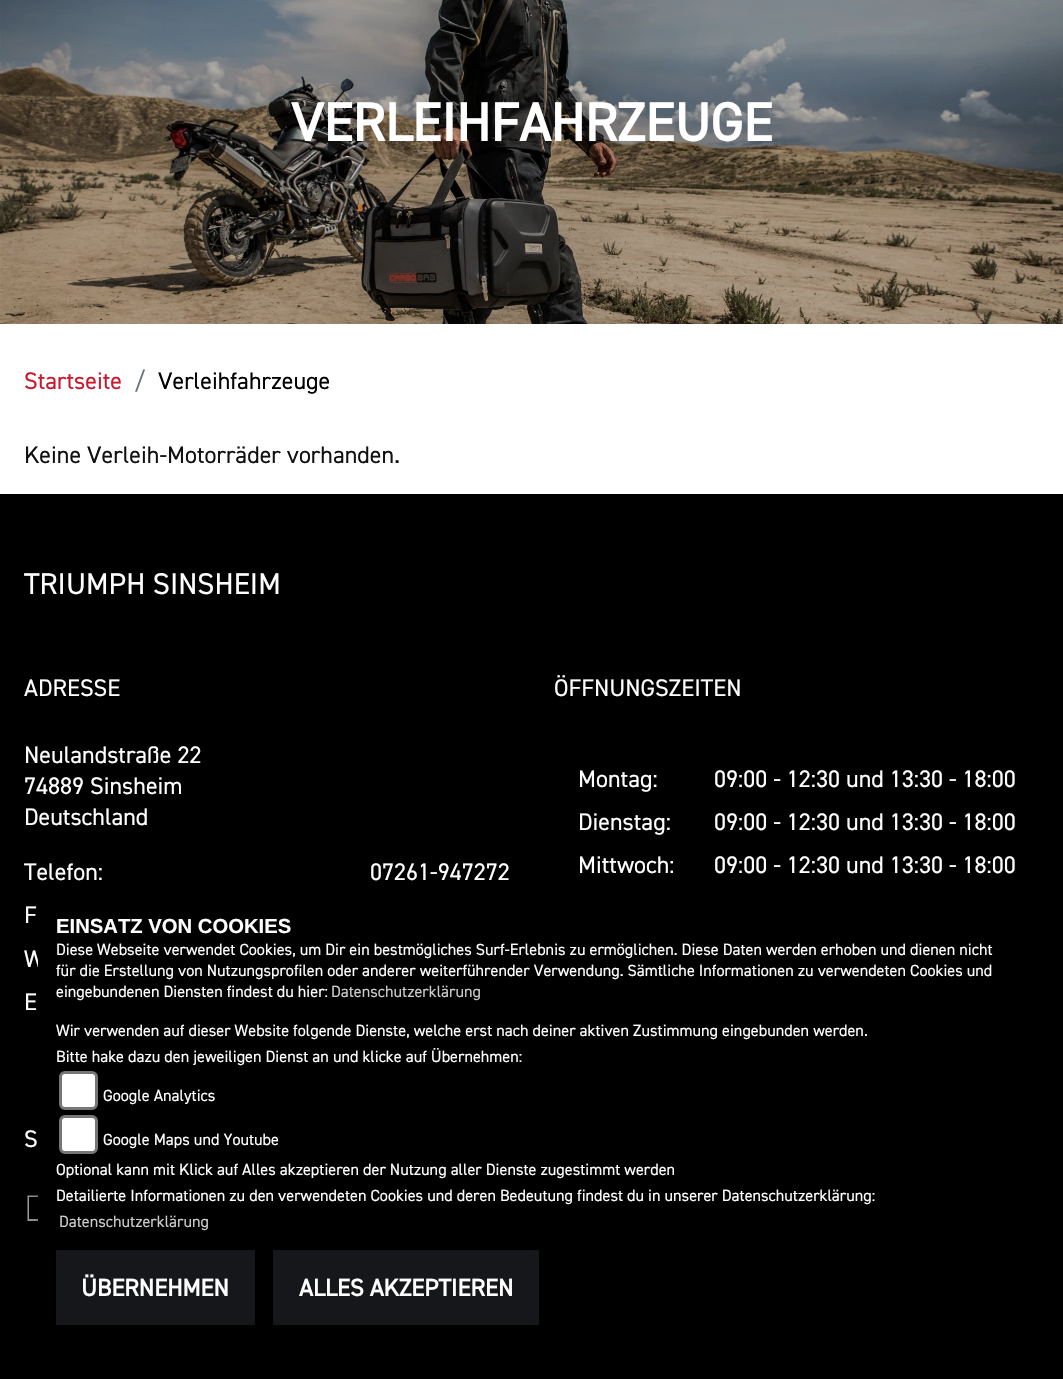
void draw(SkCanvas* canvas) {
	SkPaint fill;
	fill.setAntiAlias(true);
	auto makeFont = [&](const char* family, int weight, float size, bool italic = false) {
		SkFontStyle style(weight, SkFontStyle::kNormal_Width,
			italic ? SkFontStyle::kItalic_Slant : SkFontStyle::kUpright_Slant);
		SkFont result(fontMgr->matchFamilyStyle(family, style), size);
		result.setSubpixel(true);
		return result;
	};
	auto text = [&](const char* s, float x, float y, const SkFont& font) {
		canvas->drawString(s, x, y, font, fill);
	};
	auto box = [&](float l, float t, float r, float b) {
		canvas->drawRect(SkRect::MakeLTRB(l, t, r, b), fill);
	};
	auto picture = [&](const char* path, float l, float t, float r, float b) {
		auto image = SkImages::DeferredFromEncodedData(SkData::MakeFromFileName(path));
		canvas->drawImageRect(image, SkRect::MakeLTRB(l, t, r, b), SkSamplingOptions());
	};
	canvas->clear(0xFFFFFFFF);
	picture("image0.png", 0, 0, 1063, 324);
	fill.setColor(0xFF000000);
	box(0, 494, 1063, 1379);
	fill.setColor(0xFFFFFFFF);
	canvas->drawPath(SkPathBuilder().moveTo(27.5f, 1221).lineTo(27.5f, 1195.5f).lineTo(42, 1195.5f).lineTo(42, 1221).close().moveTo(29, 1219).lineTo(40.5f, 1219).lineTo(40.5f, 1197).lineTo(29, 1197).close().detach(), fill);
	canvas->save();
	canvas->clipRect(SkRect::MakeLTRB(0, 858, 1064, 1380));
	fill.setColor(0xFF000000);
	fill.setMaskFilter(SkMaskFilter::MakeBlur(kNormal_SkBlurStyle, 37.5f));
	canvas->drawRect(SkRect::MakeLTRB(38, 929, 1026, 1376), fill);
	fill.setMaskFilter(nullptr);
	canvas->restore();
	fill.setColor(0xFFFFFFFF);
	canvas->drawRoundRect(SkRect::MakeLTRB(60.5f, 1072.5f, 96.5f, 1108.5f), 4.5f, 4.5f, fill);
	fill.setStyle(SkPaint::kStroke_Style);
	fill.setStrokeWidth(3);
	fill.setColor(0xFF767676);
	canvas->drawRoundRect(SkRect::MakeLTRB(60.5f, 1072.5f, 96.5f, 1108.5f), 4.5f, 4.5f, fill);
	fill.setStyle(SkPaint::kFill_Style);
	fill.setColor(0xFFFFFFFF);
	canvas->drawRoundRect(SkRect::MakeLTRB(60.5f, 1116.5f, 96.5f, 1152.5f), 4.5f, 4.5f, fill);
	fill.setStyle(SkPaint::kStroke_Style);
	fill.setColor(0xFF767676);
	canvas->drawRoundRect(SkRect::MakeLTRB(60.5f, 1116.5f, 96.5f, 1152.5f), 4.5f, 4.5f, fill);
	fill.setStyle(SkPaint::kFill_Style);
	fill.setColor(0xFF16171A);
	box(56, 1250, 255, 1325);
	box(273, 1250, 539, 1325);
	auto font1 = makeFont("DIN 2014", 700, 53.9f);
	fill.setColor(0xFFFFFFFF);
	text("VERLEIHFAHRZEUGE", 291, 141, font1);
	auto font2 = makeFont("DIN 2014", 400, 24);
	fill.setColor(0xFFCD192D);
	text("Startseite", 24, 389, font2);
	fill.setColor(0xFF6C757D);
	text("/", 134, 389, font2);
	fill.setColor(0xFF000000);
	text("Verleihfahrzeuge", 158, 389, font2);
	fill.setColor(0xFF111111);
	text("Keine Verleih-Motorräder vorhanden.", 24, 463, font2);
	auto font3 = makeFont("DIN 2014", 400, 30);
	fill.setColor(0xFFFFFFFF);
	text("TRIUMPH SINSHEIM", 24, 594, font3);
	text("ADRESSE", 24, 696, font2);
	text("Neulandstraße 22", 24, 763, font2);
	text("74889 Sinsheim", 24, 794, font2);
	text("Deutschland", 24, 825, font2);
	text("Telefon:", 24, 880, font2);
	text("07261-947272", 370, 880, font2);
	text("F", 24, 923, font2);
	text("W", 24, 967, font2);
	text("E", 24, 1010, font2);
	text("ÖFFNUNGSZEITEN", 554, 696, font2);
	text("Montag:", 578, 787, font2);
	text("09:00 - 12:30 und 13:30 - 18:00", 714, 787, font2);
	text("Dienstag:", 578, 830, font2);
	text("09:00 - 12:30 und 13:30 - 18:00", 714, 830, font2);
	text("Mittwoch:", 578, 873, font2);
	text("09:00 - 12:30 und 13:30 - 18:00", 714, 873, font2);
	text("S", 24, 1147, font2);
	fill.setColor(0xFF000000);
	box(38, 950, 44, 1221);
	auto font4 = makeFont("Liberation Sans", 700, 20.25f);
	fill.setColor(0xFFFFFFFF);
	text("EINSATZ VON COOKIES", 56, 933, font4);
	auto font5 = makeFont("DIN 2014", 400, 16.2f);
	text("Diese Webseite verwendet Cookies, um Dir ein bestmögliches Surf-Erlebnis zu ermöglichen. Diese Daten werden erhoben und dienen nicht", 56, 955, font5);
	text("für die Erstellung von Nutzungsprofilen oder anderer weiterführender Verwendung. Sämtliche Informationen zu verwendeten Cookies und", 56, 976, font5);
	text("eingebundenen Diensten findest du hier:", 56, 997, font5);
	fill.setColor(0xFFCCCCCC);
	text("Datenschutzerklärung", 331, 997, font5);
	fill.setColor(0xFFFFFFFF);
	text("Wir verwenden auf dieser Website folgende Dienste, welche erst nach deiner aktiven Zustimmung eingebunden werden.", 56, 1036, font5);
	text("Bitte hake dazu den jeweiligen Dienst an und klicke auf Übernehmen:", 56, 1062, font5);
	text("Google Analytics", 103, 1101, font5);
	text("Google Maps und Youtube", 103, 1145, font5);
	text("Optional kann mit Klick auf Alles akzeptieren der Nutzung aller Dienste zugestimmt werden", 56, 1175, font5);
	text("Detailierte Informationen zu den verwendeten Cookies und deren Bedeutung findest du in unserer Datenschutzerklärung:", 56, 1201, font5);
	fill.setColor(0xFFCCCCCC);
	text("Datenschutzerklärung", 59, 1227, font5);
	auto font6 = makeFont("DIN 2014", 700, 24);
	fill.setColor(0xFFFFFFFF);
	text("ÜBERNEHMEN", 81, 1296, font6);
	text("ALLES AKZEPTIEREN", 299, 1296, font6);
}
